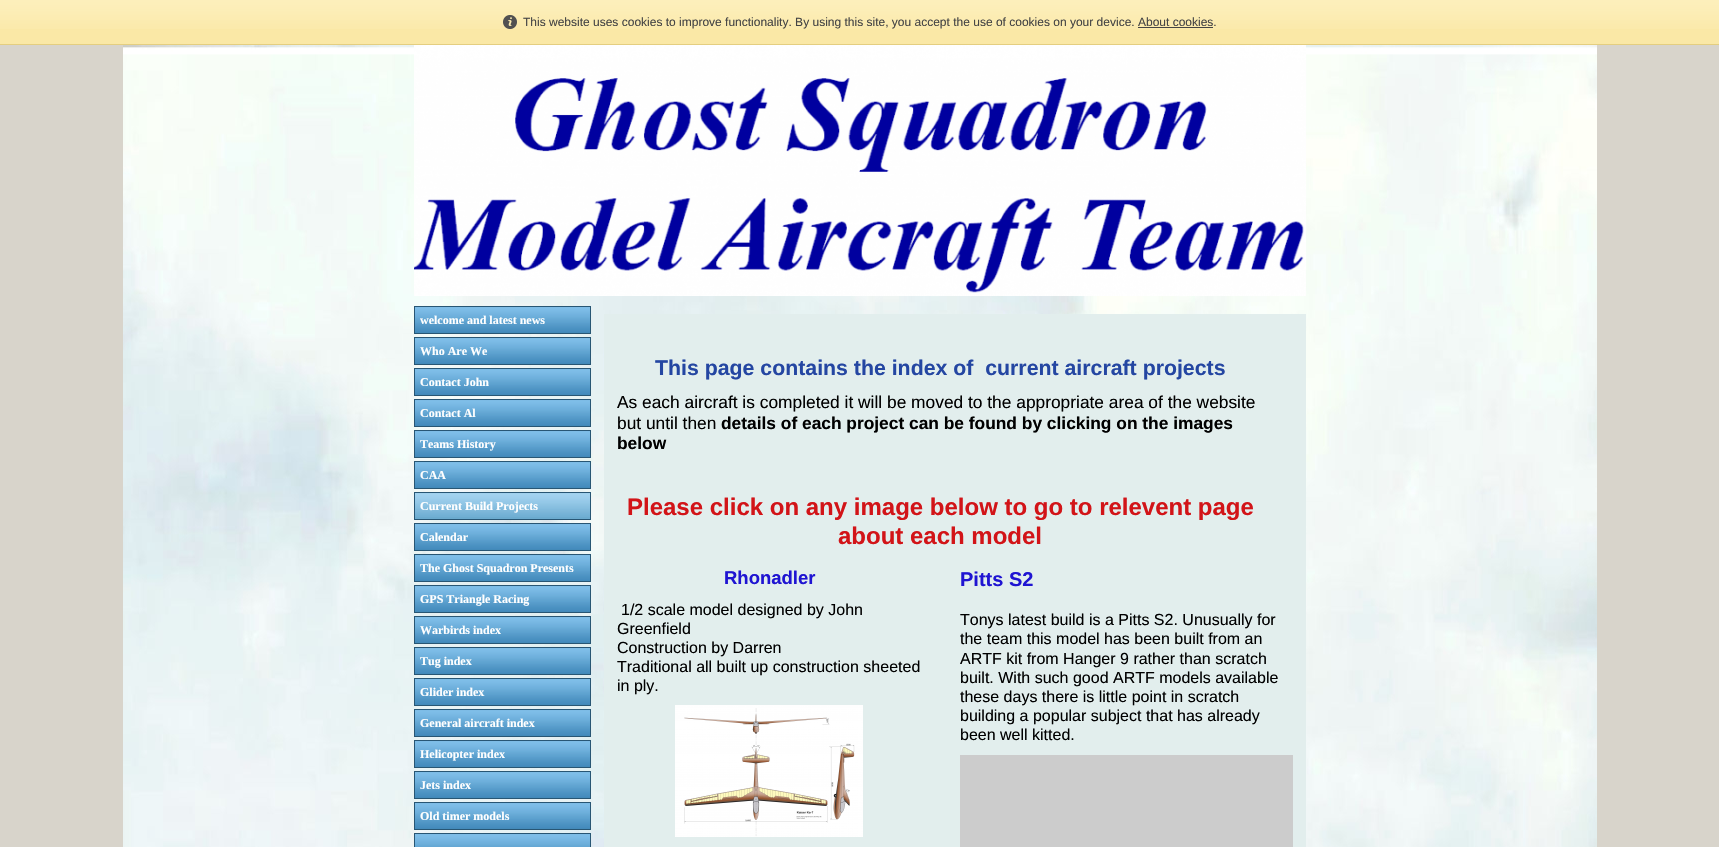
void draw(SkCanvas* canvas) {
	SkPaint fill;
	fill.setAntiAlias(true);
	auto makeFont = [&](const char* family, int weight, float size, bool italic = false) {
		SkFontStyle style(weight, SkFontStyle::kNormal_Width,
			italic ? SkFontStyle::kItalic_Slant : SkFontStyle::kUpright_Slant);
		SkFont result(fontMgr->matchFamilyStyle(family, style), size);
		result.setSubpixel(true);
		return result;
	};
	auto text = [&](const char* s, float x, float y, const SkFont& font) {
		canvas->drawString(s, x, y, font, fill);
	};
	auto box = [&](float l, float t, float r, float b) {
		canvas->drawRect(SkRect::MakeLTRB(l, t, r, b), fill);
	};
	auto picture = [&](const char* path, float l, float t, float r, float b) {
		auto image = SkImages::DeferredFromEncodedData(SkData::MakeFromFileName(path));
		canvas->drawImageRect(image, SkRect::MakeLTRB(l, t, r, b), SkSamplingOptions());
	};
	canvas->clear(0xFFD8D4CB);
	picture("image0.png", 123, 45, 1597, 847);
	fill.setColor(0xFFFAE8A6);
	box(0, 29, 1719, 44);
	picture("image1.png", 0, 0, 1719, 29);
	fill.setColor(0xFFE4CE80);
	box(0, 44, 1719, 45);
	picture("image2.png", 503, 15, 517, 29);
	fill.setColor(0xFF444444);
	box(1138, 27, 1213, 28);
	picture("image3.png", 414, 45, 1306, 296);
	fill.setColor(0xFF438AB9);
	box(415, 332, 590, 333);
	picture("image4.png", 415, 307, 590, 332);
	fill.setStyle(SkPaint::kStroke_Style);
	fill.setStrokeWidth(1);
	fill.setColor(0xFF285674);
	canvas->drawRect(SkRect::MakeLTRB(414.5f, 306.5f, 590.5f, 333.5f), fill);
	fill.setStyle(SkPaint::kFill_Style);
	fill.setColor(0xFF438AB9);
	box(415, 363, 590, 364);
	picture("image4.png", 415, 338, 590, 363);
	fill.setStyle(SkPaint::kStroke_Style);
	fill.setColor(0xFF285674);
	canvas->drawRect(SkRect::MakeLTRB(414.5f, 337.5f, 590.5f, 364.5f), fill);
	fill.setStyle(SkPaint::kFill_Style);
	fill.setColor(0xFF438AB9);
	box(415, 394, 590, 395);
	picture("image4.png", 415, 369, 590, 394);
	fill.setStyle(SkPaint::kStroke_Style);
	fill.setColor(0xFF285674);
	canvas->drawRect(SkRect::MakeLTRB(414.5f, 368.5f, 590.5f, 395.5f), fill);
	fill.setStyle(SkPaint::kFill_Style);
	fill.setColor(0xFF438AB9);
	box(415, 425, 590, 426);
	picture("image4.png", 415, 400, 590, 425);
	fill.setStyle(SkPaint::kStroke_Style);
	fill.setColor(0xFF285674);
	canvas->drawRect(SkRect::MakeLTRB(414.5f, 399.5f, 590.5f, 426.5f), fill);
	fill.setStyle(SkPaint::kFill_Style);
	fill.setColor(0xFF438AB9);
	box(415, 456, 590, 457);
	picture("image4.png", 415, 431, 590, 456);
	fill.setStyle(SkPaint::kStroke_Style);
	fill.setColor(0xFF285674);
	canvas->drawRect(SkRect::MakeLTRB(414.5f, 430.5f, 590.5f, 457.5f), fill);
	fill.setStyle(SkPaint::kFill_Style);
	fill.setColor(0xFF438AB9);
	box(415, 487, 590, 488);
	picture("image4.png", 415, 462, 590, 487);
	fill.setStyle(SkPaint::kStroke_Style);
	fill.setColor(0xFF285674);
	canvas->drawRect(SkRect::MakeLTRB(414.5f, 461.5f, 590.5f, 488.5f), fill);
	fill.setStyle(SkPaint::kFill_Style);
	fill.setColor(0xFF6BABCF);
	box(415, 517, 590, 519);
	picture("image5.png", 415, 493, 590, 517);
	fill.setStyle(SkPaint::kStroke_Style);
	fill.setColor(0xFF285674);
	canvas->drawRect(SkRect::MakeLTRB(414.5f, 492.5f, 590.5f, 519.5f), fill);
	fill.setStyle(SkPaint::kFill_Style);
	fill.setColor(0xFF438AB9);
	box(415, 549, 590, 550);
	picture("image4.png", 415, 524, 590, 549);
	fill.setStyle(SkPaint::kStroke_Style);
	fill.setColor(0xFF285674);
	canvas->drawRect(SkRect::MakeLTRB(414.5f, 523.5f, 590.5f, 550.5f), fill);
	fill.setStyle(SkPaint::kFill_Style);
	fill.setColor(0xFF438AB9);
	box(415, 580, 590, 581);
	picture("image4.png", 415, 555, 590, 580);
	fill.setStyle(SkPaint::kStroke_Style);
	fill.setColor(0xFF285674);
	canvas->drawRect(SkRect::MakeLTRB(414.5f, 554.5f, 590.5f, 581.5f), fill);
	fill.setStyle(SkPaint::kFill_Style);
	fill.setColor(0xFF438AB9);
	box(415, 611, 590, 612);
	picture("image4.png", 415, 586, 590, 611);
	fill.setStyle(SkPaint::kStroke_Style);
	fill.setColor(0xFF285674);
	canvas->drawRect(SkRect::MakeLTRB(414.5f, 585.5f, 590.5f, 612.5f), fill);
	fill.setStyle(SkPaint::kFill_Style);
	fill.setColor(0xFF438AB9);
	box(415, 642, 590, 643);
	picture("image4.png", 415, 617, 590, 642);
	fill.setStyle(SkPaint::kStroke_Style);
	fill.setColor(0xFF285674);
	canvas->drawRect(SkRect::MakeLTRB(414.5f, 616.5f, 590.5f, 643.5f), fill);
	fill.setStyle(SkPaint::kFill_Style);
	fill.setColor(0xFF438AB9);
	box(415, 673, 590, 674);
	picture("image4.png", 415, 648, 590, 673);
	fill.setStyle(SkPaint::kStroke_Style);
	fill.setColor(0xFF285674);
	canvas->drawRect(SkRect::MakeLTRB(414.5f, 647.5f, 590.5f, 674.5f), fill);
	fill.setStyle(SkPaint::kFill_Style);
	fill.setColor(0xFF438AB9);
	box(415, 704, 590, 705);
	picture("image4.png", 415, 679, 590, 704);
	fill.setStyle(SkPaint::kStroke_Style);
	fill.setColor(0xFF285674);
	canvas->drawRect(SkRect::MakeLTRB(414.5f, 678.5f, 590.5f, 705.5f), fill);
	fill.setStyle(SkPaint::kFill_Style);
	fill.setColor(0xFF438AB9);
	box(415, 735, 590, 736);
	picture("image4.png", 415, 710, 590, 735);
	fill.setStyle(SkPaint::kStroke_Style);
	fill.setColor(0xFF285674);
	canvas->drawRect(SkRect::MakeLTRB(414.5f, 709.5f, 590.5f, 736.5f), fill);
	fill.setStyle(SkPaint::kFill_Style);
	fill.setColor(0xFF438AB9);
	box(415, 766, 590, 767);
	picture("image4.png", 415, 741, 590, 766);
	fill.setStyle(SkPaint::kStroke_Style);
	fill.setColor(0xFF285674);
	canvas->drawRect(SkRect::MakeLTRB(414.5f, 740.5f, 590.5f, 767.5f), fill);
	fill.setStyle(SkPaint::kFill_Style);
	fill.setColor(0xFF438AB9);
	box(415, 797, 590, 798);
	picture("image4.png", 415, 772, 590, 797);
	fill.setStyle(SkPaint::kStroke_Style);
	fill.setColor(0xFF285674);
	canvas->drawRect(SkRect::MakeLTRB(414.5f, 771.5f, 590.5f, 798.5f), fill);
	fill.setStyle(SkPaint::kFill_Style);
	fill.setColor(0xFF438AB9);
	box(415, 828, 590, 829);
	picture("image4.png", 415, 803, 590, 828);
	fill.setStyle(SkPaint::kStroke_Style);
	fill.setColor(0xFF285674);
	canvas->drawRect(SkRect::MakeLTRB(414.5f, 802.5f, 590.5f, 829.5f), fill);
	picture("image6.png", 415, 834, 590, 847);
	canvas->drawRect(SkRect::MakeLTRB(414.5f, 833.5f, 590.5f, 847.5f), fill);
	fill.setStyle(SkPaint::kFill_Style);
	fill.setColor(0xFFE2EEED);
	box(604, 314, 1306, 847);
	picture("image7.png", 675, 705, 863, 837);
	fill.setColor(0xFFCCCCCC);
	box(960, 755, 1293, 847);
	auto font1 = makeFont("Liberation Sans", 400, 12);
	fill.setColor(0xFF444444);
	text("This website uses cookies to improve functionality. By using this site, you accept the use of cookies on your device. About cookies.", 523, 26, font1);
	auto font2 = makeFont("Liberation Serif", 700, 12);
	fill.setColor(0xFFFFFFFF);
	text("welcome and latest news", 420, 324, font2);
	text("Who Are We", 420, 355, font2);
	text("Contact John", 420, 386, font2);
	text("Contact Al", 420, 417, font2);
	text("Teams History", 420, 448, font2);
	text("CAA", 420, 479, font2);
	text("Current Build Projects", 420, 510, font2);
	text("Calendar", 420, 541, font2);
	text("The Ghost Squadron Presents", 420, 572, font2);
	text("GPS Triangle Racing", 420, 603, font2);
	text("Warbirds index", 420, 634, font2);
	text("Tug index", 420, 665, font2);
	text("Glider index", 420, 696, font2);
	text("General aircraft index", 420, 727, font2);
	text("Helicopter index", 420, 758, font2);
	text("Jets index", 420, 789, font2);
	text("Old timer models", 420, 820, font2);
	auto font3 = makeFont("Liberation Sans", 700, 21.3f);
	fill.setColor(0xFF2446A2);
	text("This page contains the index of  current aircraft projects", 655, 375, font3);
	auto font4 = makeFont("Liberation Sans", 400, 17.35f);
	fill.setColor(0xFF000000);
	text("As each aircraft is completed it will be moved to the appropriate area of the website", 617, 408, font4);
	text("but until then", 617, 429, font4);
	auto font5 = makeFont("Liberation Sans", 700, 17.35f);
	text("details of each project can be found by clicking on the images", 721, 429, font5);
	text("below", 617, 449, font5);
	auto font6 = makeFont("Liberation Sans", 700, 24);
	fill.setColor(0xFFD21418);
	text("Please click on any image below to go to relevent page", 627, 515, font6);
	text("about each model", 838, 544, font6);
	auto font7 = makeFont("Liberation Sans", 700, 18.5f);
	fill.setColor(0xFF1F14D2);
	text("Rhonadler", 724, 584, font7);
	auto font8 = makeFont("Liberation Sans", 400, 16);
	fill.setColor(0xFF000000);
	text("1/2 scale model designed by John", 621, 615, font8);
	text("Greenfield", 617, 634, font8);
	text("Construction by Darren", 617, 653, font8);
	text("Traditional all built up construction sheeted", 617, 672, font8);
	text("in ply.", 617, 691, font8);
	auto font9 = makeFont("Liberation Sans", 700, 20);
	fill.setColor(0xFF1F14D2);
	text("Pitts S2", 960, 586, font9);
	fill.setColor(0xFF000000);
	text("Tonys latest build is a Pitts S2. Unusually for", 960, 625, font8);
	text("the team this model has been built from an", 960, 644, font8);
	text("ARTF kit from Hanger 9 rather than scratch", 960, 664, font8);
	text("built. With such good ARTF models available", 960, 683, font8);
	text("these days there is little point in scratch", 960, 702, font8);
	text("building a popular subject that has already", 960, 721, font8);
	text("been well kitted.", 960, 740, font8);
}
